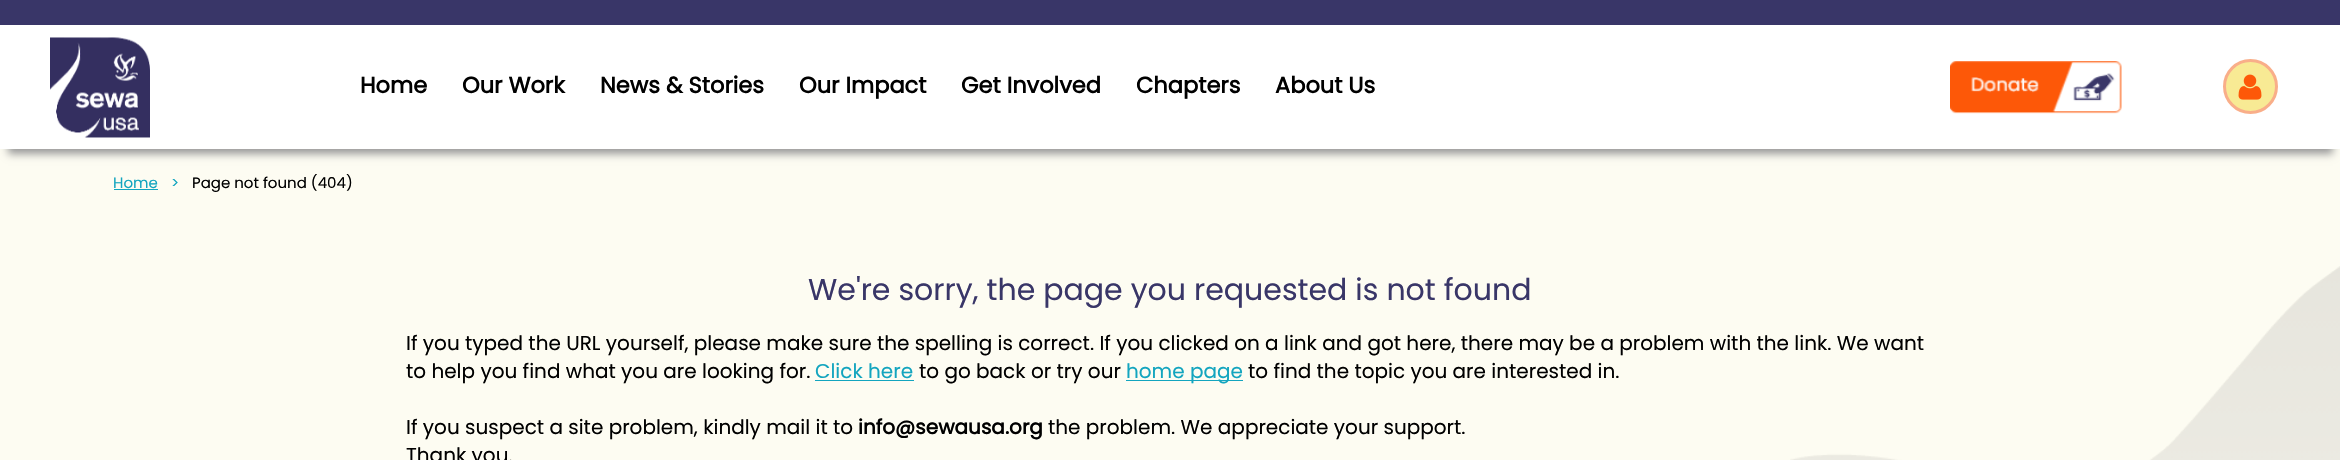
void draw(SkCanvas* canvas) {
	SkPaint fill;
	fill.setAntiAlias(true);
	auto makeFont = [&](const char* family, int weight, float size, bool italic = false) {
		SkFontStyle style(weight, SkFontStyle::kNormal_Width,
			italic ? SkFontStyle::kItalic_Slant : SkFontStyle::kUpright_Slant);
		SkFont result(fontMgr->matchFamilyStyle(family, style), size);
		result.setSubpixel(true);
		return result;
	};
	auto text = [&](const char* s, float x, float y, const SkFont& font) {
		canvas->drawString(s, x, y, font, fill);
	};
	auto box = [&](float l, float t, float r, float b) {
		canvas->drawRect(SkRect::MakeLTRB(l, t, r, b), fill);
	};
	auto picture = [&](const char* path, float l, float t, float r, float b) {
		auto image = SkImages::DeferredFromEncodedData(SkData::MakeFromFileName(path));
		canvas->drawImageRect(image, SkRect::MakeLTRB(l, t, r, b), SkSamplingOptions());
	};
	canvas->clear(0xFFFDFCF2);
	fill.setColor(0xFFFFFFFF);
	box(0, 25, 2340, 149);
	canvas->save();
	canvas->clipPath(SkPathBuilder(SkPathFillType::kEvenOdd).moveTo(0, 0).lineTo(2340, 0).lineTo(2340, 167).lineTo(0, 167).close().moveTo(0, -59).lineTo(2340, -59).lineTo(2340, 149).lineTo(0, 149).close().detach(), true);
	fill.setColor(0xFF999999);
	fill.setMaskFilter(SkMaskFilter::MakeBlur(kNormal_SkBlurStyle, 4));
	canvas->drawRect(SkRect::MakeLTRB(8, -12, 2333, 154), fill);
	fill.setMaskFilter(nullptr);
	canvas->restore();
	fill.setColor(0xFF393668);
	box(0, 0, 2340, 25);
	picture("image0.png", 50, 37, 150, 138);
	picture("image1.png", 1950, 61, 2122, 114);
	fill.setColor(0xFFF8EA94);
	canvas->drawCircle(2250.5f, 86.5f, 26, fill);
	fill.setStyle(SkPaint::kStroke_Style);
	fill.setStrokeWidth(3);
	fill.setColor(0xFFF9AE89);
	canvas->drawCircle(2250.5f, 86.5f, 26, fill);
	picture("image2.png", 2238, 74, 2262, 100);
	fill.setStyle(SkPaint::kFill_Style);
	fill.setColor(0xFF13A5BF);
	box(114, 189, 158, 190);
	picture("image3.png", 1790, 266, 2340, 460);
	box(815, 380, 914, 381);
	box(1126, 380, 1243, 381);
	auto font1 = makeFont("Poppins", 700, 22.5f);
	fill.setColor(0xFF000000);
	text("Home", 360, 93, font1);
	text("Our Work", 462, 93, font1);
	text("News & Stories", 600, 93, font1);
	text("Our Impact", 799, 93, font1);
	text("Get Involved", 961, 93, font1);
	text("Chapters", 1136, 93, font1);
	text("About Us", 1275, 93, font1);
	auto font2 = makeFont("Poppins", 400, 15);
	fill.setColor(0xFF13A5BF);
	text("Home", 113, 188, font2);
	text(">", 171, 188, font2);
	fill.setColor(0xFF000000);
	text("Page not found (404)", 192, 188, font2);
	auto font3 = makeFont("Poppins", 400, 30);
	fill.setColor(0xFF393668);
	text("We're sorry, the page you requested is not found", 808, 300, font3);
	auto font4 = makeFont("Poppins", 400, 20);
	fill.setColor(0xFF000000);
	text("If you typed the URL yourself, please make sure the spelling is correct. If you clicked on a link and got here, there may be a problem with the link. We want", 406, 350, font4);
	text("to help you find what you are looking for.", 406, 378, font4);
	fill.setColor(0xFF13A5BF);
	text("Click here", 815, 378, font4);
	fill.setColor(0xFF000000);
	text("to go back or try our", 919, 378, font4);
	fill.setColor(0xFF13A5BF);
	text("home page", 1126, 378, font4);
	fill.setColor(0xFF000000);
	text("to find the topic you are interested in.", 1248, 378, font4);
	text("If you suspect a site problem, kindly mail it to", 406, 434, font4);
	auto font5 = makeFont("Poppins", 700, 20);
	text("info@sewausa.org", 858, 434, font5);
	text("the problem. We appreciate your support.", 1048, 434, font4);
	text("Thank you.", 406, 462, font4);
}
